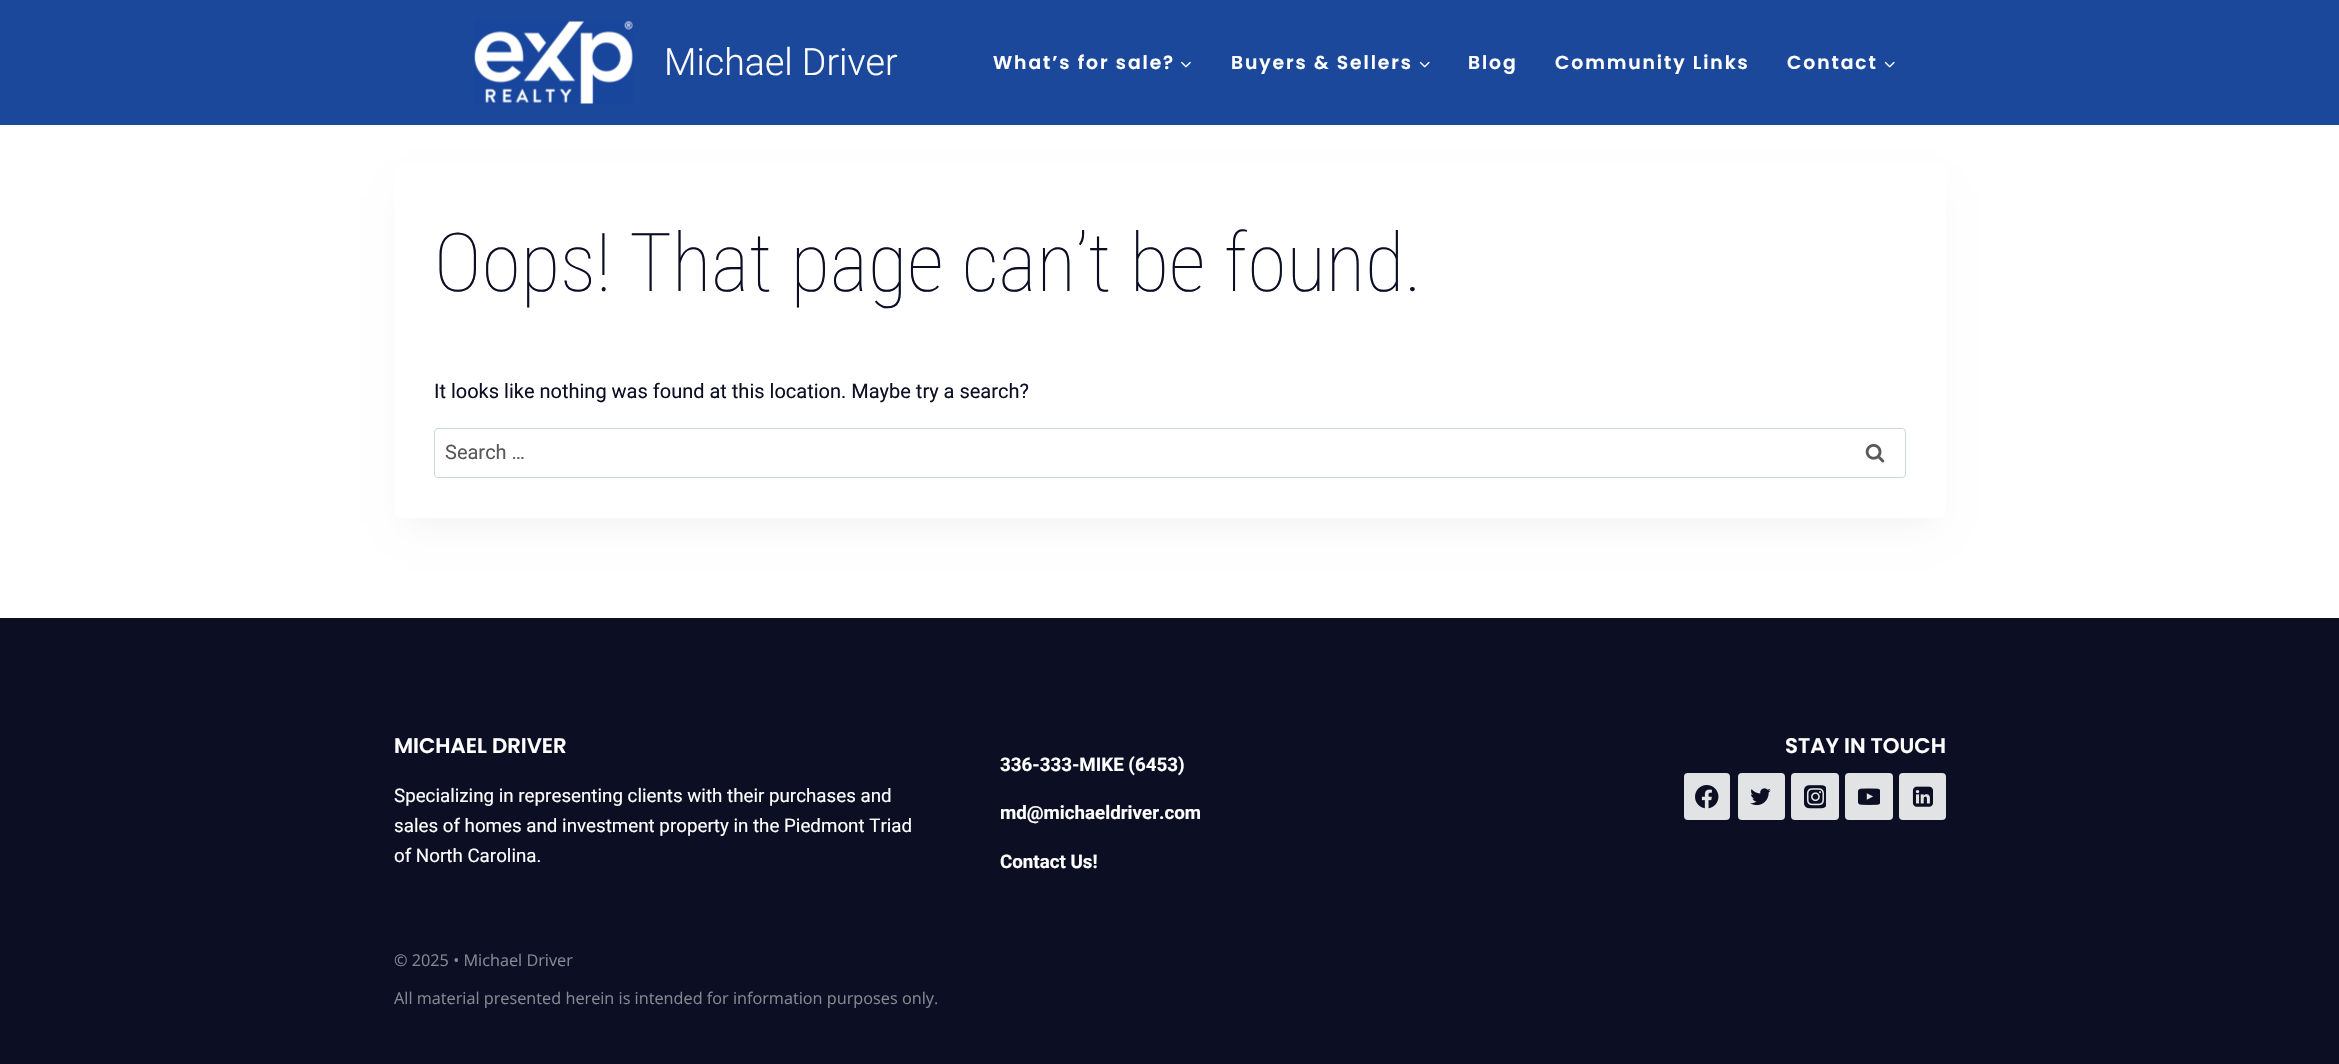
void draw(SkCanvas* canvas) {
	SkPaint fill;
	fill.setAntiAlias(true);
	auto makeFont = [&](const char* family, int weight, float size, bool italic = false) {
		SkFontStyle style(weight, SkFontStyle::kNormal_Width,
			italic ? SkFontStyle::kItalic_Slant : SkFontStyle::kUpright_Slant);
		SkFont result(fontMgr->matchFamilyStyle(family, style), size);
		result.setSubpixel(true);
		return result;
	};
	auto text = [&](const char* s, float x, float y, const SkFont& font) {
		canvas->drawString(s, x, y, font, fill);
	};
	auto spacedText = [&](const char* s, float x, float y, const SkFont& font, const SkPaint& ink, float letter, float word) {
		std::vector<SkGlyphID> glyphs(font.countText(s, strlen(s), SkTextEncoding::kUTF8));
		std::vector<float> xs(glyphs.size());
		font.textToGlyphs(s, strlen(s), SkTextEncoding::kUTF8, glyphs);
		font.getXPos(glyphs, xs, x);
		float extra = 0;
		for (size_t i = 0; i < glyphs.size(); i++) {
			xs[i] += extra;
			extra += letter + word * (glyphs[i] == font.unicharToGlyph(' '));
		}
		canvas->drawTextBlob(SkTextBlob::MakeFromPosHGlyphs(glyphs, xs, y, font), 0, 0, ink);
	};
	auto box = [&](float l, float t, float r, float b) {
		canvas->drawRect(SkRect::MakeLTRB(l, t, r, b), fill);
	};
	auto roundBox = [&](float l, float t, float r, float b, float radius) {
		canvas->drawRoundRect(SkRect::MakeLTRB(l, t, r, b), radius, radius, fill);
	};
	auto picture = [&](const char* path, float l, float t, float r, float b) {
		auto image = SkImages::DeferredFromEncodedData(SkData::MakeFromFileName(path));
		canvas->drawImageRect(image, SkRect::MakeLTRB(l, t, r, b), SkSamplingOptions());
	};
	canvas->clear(0xFFFFFFFF);
	fill.setColor(0xFF1B489B);
	box(0, 0, 2339, 125);
	picture("image0.png", 474, 21, 633, 104);
	picture("image1.png", 1181, 61, 1191, 68);
	picture("image2.png", 1419, 61, 1430, 68);
	picture("image2.png", 1884, 61, 1895, 68);
	fill.setColor(0x0D000000);
	fill.setMaskFilter(SkMaskFilter::MakeBlur(kNormal_SkBlurStyle, 15.5f));
	canvas->drawRect(SkRect::MakeLTRB(406, 195, 1934, 524), fill);
	fill.setMaskFilter(nullptr);
	fill.setColor(0xFFFFFFFF);
	roundBox(394, 164, 1946, 518, 5);
	fill.setStyle(SkPaint::kStroke_Style);
	fill.setStrokeWidth(1);
	fill.setColor(0xFFCBD5E0);
	canvas->drawRoundRect(SkRect::MakeLTRB(434.5f, 428.5f, 1905.5f, 477.5f), 3.5f, 3.5f, fill);
	picture("image3.png", 1865, 443, 1885, 463);
	fill.setStyle(SkPaint::kFill_Style);
	fill.setColor(0xFF0C0F24);
	box(0, 618, 2339, 1064);
	fill.setColor(0xFFE2E3E4);
	roundBox(1684, 773, 1730, 820, 4);
	picture("image4.png", 1695, 785, 1719, 809);
	roundBox(1738, 773, 1785, 820, 4);
	picture("image5.png", 1750, 788, 1771, 806);
	roundBox(1791, 773, 1839, 820, 4);
	picture("image6.png", 1804, 785, 1826, 809);
	roundBox(1845, 773, 1893, 820, 4);
	picture("image7.png", 1858, 788, 1880, 805);
	roundBox(1899, 773, 1946, 820, 4);
	picture("image8.png", 1912, 786, 1933, 807);
	auto font1 = makeFont("Roboto", 300, 37.5f);
	fill.setColor(0xFFFFFFFF);
	text("Michael Driver", 664, 75, font1);
	auto font2 = makeFont("Poppins", 600, 18.75f);
	spacedText("What’s for sale?", 993, 69, font2, fill, 1.9f, 0);
	spacedText("Buyers & Sellers", 1231, 69, font2, fill, 1.9f, 0);
	spacedText("Blog", 1468, 69, font2, fill, 1.9f, 0);
	spacedText("Community Links", 1555, 69, font2, fill, 1.9f, 0);
	spacedText("Contact", 1787, 69, font2, fill, 1.9f, 0);
	auto font3 = makeFont("Roboto Condensed", 100, 81.25f);
	fill.setColor(0xFF0C0F24);
	text("Oops! That page can’t be found.", 434, 291, font3);
	auto font4 = makeFont("Roboto", 400, 20);
	text("It looks like nothing was found at this location. Maybe try a search?", 434, 398, font4);
	fill.setColor(0xFF58595B);
	text("Search …", 445, 459, font4);
	auto font5 = makeFont("Poppins", 600, 21.25f);
	fill.setColor(0xFFFFFFFF);
	text("MICHAEL DRIVER", 394, 753, font5);
	auto font6 = makeFont("Roboto", 400, 18.75f);
	text("Specializing in representing clients with their purchases and", 394, 802, font6);
	text("sales of homes and investment property in the Piedmont Triad", 394, 832, font6);
	text("of North Carolina.", 394, 862, font6);
	auto font7 = makeFont("Roboto", 700, 18.75f);
	text("336-333-MIKE (6453)", 1000, 771, font7);
	text("md@michaeldriver.com", 1000, 819, font7);
	text("Contact Us!", 1000, 868, font7);
	text("STAY IN TOUCH", 1785, 753, font5);
	auto font8 = makeFont("Open Sans", 400, 16.25f);
	fill.setColor(0xFF868792);
	text("© 2025 • Michael Driver", 394, 966, font8);
	text("All material presented herein is intended for information purposes only.", 394, 1004, font8);
}
